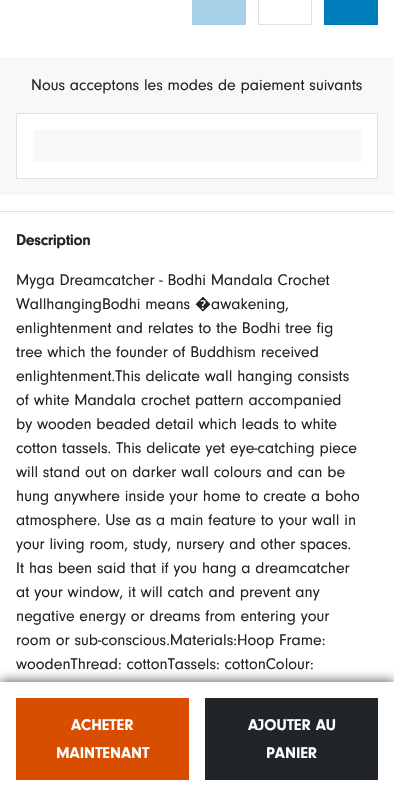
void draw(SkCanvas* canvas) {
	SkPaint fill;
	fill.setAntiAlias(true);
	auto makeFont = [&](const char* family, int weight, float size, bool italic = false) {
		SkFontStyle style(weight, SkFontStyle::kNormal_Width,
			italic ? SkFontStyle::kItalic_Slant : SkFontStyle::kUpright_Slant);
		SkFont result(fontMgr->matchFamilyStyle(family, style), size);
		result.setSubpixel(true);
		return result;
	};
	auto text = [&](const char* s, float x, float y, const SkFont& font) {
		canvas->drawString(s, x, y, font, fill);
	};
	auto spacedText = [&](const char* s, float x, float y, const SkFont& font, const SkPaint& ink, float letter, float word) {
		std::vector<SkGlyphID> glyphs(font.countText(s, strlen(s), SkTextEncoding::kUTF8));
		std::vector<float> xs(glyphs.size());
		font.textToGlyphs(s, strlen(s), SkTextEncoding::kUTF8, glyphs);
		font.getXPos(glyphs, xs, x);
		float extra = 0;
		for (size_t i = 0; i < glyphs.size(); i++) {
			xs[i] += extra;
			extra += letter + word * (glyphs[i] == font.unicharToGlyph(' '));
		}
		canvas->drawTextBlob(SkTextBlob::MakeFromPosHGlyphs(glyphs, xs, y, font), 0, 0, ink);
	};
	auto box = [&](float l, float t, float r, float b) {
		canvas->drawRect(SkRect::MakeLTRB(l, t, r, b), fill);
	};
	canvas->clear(0xFFFFFFFF);
	fill.setColor(0xFFF8F8F8);
	box(0, 57, 394, 195);
	fill.setColor(0xFFFFFFFF);
	canvas->drawRect(SkRect::MakeLTRB(16.5f, 113.5f, 377.5f, 178.5f), fill);
	fill.setStyle(SkPaint::kStroke_Style);
	fill.setStrokeWidth(1);
	fill.setColor(0xFFDEE2E6);
	canvas->drawRect(SkRect::MakeLTRB(16.5f, 113.5f, 377.5f, 178.5f), fill);
	fill.setStyle(SkPaint::kFill_Style);
	fill.setColor(0xFFF8F8F8);
	box(33, 130, 361, 162);
	fill.setColor(0xFFA6D1E7);
	box(192, 0, 246, 25);
	fill.setStyle(SkPaint::kStroke_Style);
	fill.setColor(0xFFDEE2E6);
	canvas->drawRect(SkRect::MakeLTRB(258.5f, -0.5f, 311.5f, 24.5f), fill);
	fill.setStyle(SkPaint::kFill_Style);
	fill.setColor(0xFF007CBB);
	box(324, 0, 378, 25);
	fill.setColor(0xFF6C757D);
	fill.setMaskFilter(SkMaskFilter::MakeBlur(kNormal_SkBlurStyle, 5));
	canvas->drawRect(SkRect::MakeLTRB(0, 680, 394, 794), fill);
	fill.setMaskFilter(nullptr);
	fill.setColor(0xFFFFFFFF);
	box(0, 682, 394, 796);
	fill.setColor(0xFFD94D00);
	box(16, 698, 189, 780);
	fill.setColor(0xFF212529);
	box(205, 698, 378, 780);
	fill.setColor(0xFFDEE2E6);
	box(0, 211, 394, 212);
	auto font1 = makeFont("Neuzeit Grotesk", 400, 16);
	fill.setColor(0xFF212529);
	text("Nous acceptons les modes de paiement suivants", 31, 90, font1);
	auto font2 = makeFont("Neuzeit Grotesk", 700, 16);
	fill.setColor(0xFFFFFFFF);
	text("ACHETER", 71, 730, font2);
	text("MAINTENANT", 56, 758, font2);
	text("AJOUTER AU", 248, 730, font2);
	text("PANIER", 266, 758, font2);
	fill.setColor(0xFF212529);
	spacedText("Description", 16, 245, font2, fill, -0.4f, 0);
	text("Myga Dreamcatcher - Bodhi Mandala Crochet", 16, 285, font1);
	text("WallhangingBodhi means", 16, 309, font1);
	auto font3 = makeFont("Noto Sans", 400, 16);
	text("�", 195, 309, font3);
	text("awakening,", 211, 309, font1);
	text("enlightenment and relates to the Bodhi tree fig", 16, 333, font1);
	text("tree which the founder of Buddhism received", 16, 357, font1);
	text("enlightenment.This delicate wall hanging consists", 16, 381, font1);
	text("of white Mandala crochet pattern accompanied", 16, 405, font1);
	text("by wooden beaded detail which leads to white", 16, 429, font1);
	text("cotton tassels. This delicate yet eye-catching piece", 16, 453, font1);
	text("will stand out on darker wall colours and can be", 16, 477, font1);
	text("hung anywhere inside your home to create a boho", 16, 501, font1);
	text("atmosphere. Use as a main feature to your wall in", 16, 525, font1);
	text("your living room, study, nursery and other spaces.", 16, 549, font1);
	text("It has been said that if you hang a dreamcatcher", 16, 573, font1);
	text("at your window, it will catch and prevent any", 16, 597, font1);
	text("negative energy or dreams from entering your", 16, 621, font1);
	text("room or sub-conscious.Materials:Hoop Frame:", 16, 645, font1);
	text("woodenThread: cottonTassels: cottonColour:", 16, 669, font1);
}
